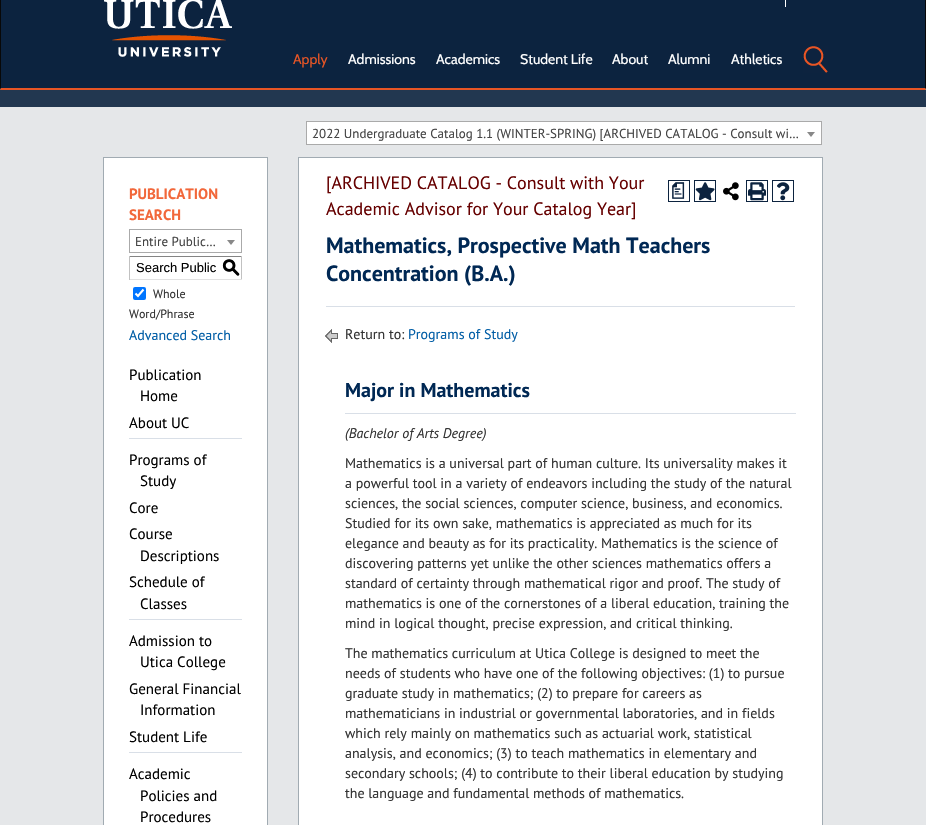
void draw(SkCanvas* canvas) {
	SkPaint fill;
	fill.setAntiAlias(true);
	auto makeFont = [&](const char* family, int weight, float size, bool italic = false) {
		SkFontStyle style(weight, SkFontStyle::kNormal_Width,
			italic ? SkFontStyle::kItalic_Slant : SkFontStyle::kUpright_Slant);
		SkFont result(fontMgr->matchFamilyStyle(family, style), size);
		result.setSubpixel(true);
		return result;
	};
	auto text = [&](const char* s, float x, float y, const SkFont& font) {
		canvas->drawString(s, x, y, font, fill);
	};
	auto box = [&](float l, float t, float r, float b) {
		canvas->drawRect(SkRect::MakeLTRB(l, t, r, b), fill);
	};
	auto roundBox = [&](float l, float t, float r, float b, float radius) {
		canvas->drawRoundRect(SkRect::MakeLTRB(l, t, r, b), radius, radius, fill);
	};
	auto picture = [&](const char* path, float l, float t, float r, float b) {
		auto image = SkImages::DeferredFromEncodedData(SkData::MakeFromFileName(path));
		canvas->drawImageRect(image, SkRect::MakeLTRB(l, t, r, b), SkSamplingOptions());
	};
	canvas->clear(0xFFE5E7E9);
	fill.setColor(0xFF0C233F);
	box(1, 0, 925, 88);
	fill.setColor(0xFF080808);
	canvas->drawPath(SkPathBuilder().moveTo(926, -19).lineTo(926, 90).lineTo(925, 88).lineTo(925, -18).close().detach(), fill);
	fill.setColor(0xFFE75525);
	canvas->drawPath(SkPathBuilder().moveTo(926, 90).lineTo(0, 90).lineTo(1, 88).lineTo(925, 88).close().detach(), fill);
	fill.setColor(0xFF080808);
	canvas->drawPath(SkPathBuilder().moveTo(0, 90).lineTo(0, -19).lineTo(1, -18).lineTo(1, 88).close().detach(), fill);
	picture("image0.png", 104, 0, 232, 57);
	fill.setColor(0xFFFFFFFF);
	box(785, 0, 786, 7);
	picture("image1.png", 803, 46, 828, 73);
	fill.setColor(0xFF223750);
	box(0, 90, 926, 107);
	fill.setColor(0xFFFFFFFF);
	canvas->drawRect(SkRect::MakeLTRB(306.5f, 121.5f, 821.5f, 144.5f), fill);
	fill.setStyle(SkPaint::kStroke_Style);
	fill.setStrokeWidth(1);
	fill.setColor(0xFFAAAAAA);
	canvas->drawRect(SkRect::MakeLTRB(306.5f, 121.5f, 821.5f, 144.5f), fill);
	fill.setStyle(SkPaint::kFill_Style);
	fill.setColor(0xFF888888);
	canvas->drawPath(SkPathBuilder().moveTo(807, 132).lineTo(815, 132).lineTo(811, 137).close().detach(), fill);
	fill.setColor(0xFFFFFFFF);
	canvas->drawRect(SkRect::MakeLTRB(103.5f, 157.5f, 267.5f, 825.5f), fill);
	fill.setStyle(SkPaint::kStroke_Style);
	fill.setColor(0xFFA1ABB2);
	canvas->drawRect(SkRect::MakeLTRB(103.5f, 157.5f, 267.5f, 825.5f), fill);
	fill.setColor(0xFFAAAAAA);
	canvas->drawRect(SkRect::MakeLTRB(129.5f, 229.5f, 241.5f, 252.5f), fill);
	fill.setStyle(SkPaint::kFill_Style);
	fill.setColor(0xFF888888);
	canvas->drawPath(SkPathBuilder().moveTo(227, 240).lineTo(235, 240).lineTo(231, 245).close().detach(), fill);
	fill.setColor(0xFF848484);
	box(129, 256, 242, 257);
	fill.setColor(0xFFC1C1C1);
	box(241, 256, 242, 280);
	fill.setColor(0xFFE1E1E1);
	box(129, 279, 242, 280);
	fill.setColor(0xFFC1C1C1);
	box(129, 256, 130, 280);
	fill.setColor(0xFF0075FF);
	roundBox(133, 287, 146, 300, 2);
	fill.setStyle(SkPaint::kStroke_Style);
	fill.setStrokeWidth(2.1f);
	fill.setColor(0xFFFFFFFF);
	canvas->drawPath(SkPathBuilder().moveTo(135.5f, 293.5f).lineTo(138, 296).lineTo(143.5f, 289.5f).detach(), fill);
	fill.setStyle(SkPaint::kFill_Style);
	fill.setColor(0xFFD9DFE7);
	box(129, 438, 242, 439);
	box(129, 619, 242, 620);
	box(129, 752, 242, 753);
	fill.setColor(0xFFFFFFFF);
	canvas->drawRect(SkRect::MakeLTRB(298.5f, 157.5f, 822.5f, 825.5f), fill);
	fill.setStyle(SkPaint::kStroke_Style);
	fill.setStrokeWidth(1);
	fill.setColor(0xFFA1ABB2);
	canvas->drawRect(SkRect::MakeLTRB(298.5f, 157.5f, 822.5f, 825.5f), fill);
	fill.setColor(0xFF0C233F);
	canvas->drawRect(SkRect::MakeLTRB(668.5f, 180.5f, 689.5f, 201.5f), fill);
	canvas->drawRect(SkRect::MakeLTRB(694.5f, 180.5f, 715.5f, 201.5f), fill);
	picture("image2.png", 695, 182, 715, 201);
	picture("image3.png", 723, 182, 739, 201);
	canvas->drawRect(SkRect::MakeLTRB(746.5f, 180.5f, 767.5f, 201.5f), fill);
	picture("image4.png", 748, 182, 766, 201);
	canvas->drawRect(SkRect::MakeLTRB(772.5f, 180.5f, 793.5f, 201.5f), fill);
	picture("image5.png", 777, 182, 790, 201);
	fill.setStyle(SkPaint::kFill_Style);
	fill.setColor(0xFFD9DFE7);
	box(326, 306, 795, 307);
	picture("image6.png", 325, 329, 338, 343);
	box(345, 413, 796, 414);
	auto font1 = makeFont("Cabin", 400, 14);
	fill.setColor(0xFFE75525);
	text("Apply", 293, 64, font1);
	fill.setColor(0xFFFFFFFF);
	text("Admissions", 348, 64, font1);
	text("Academics", 436, 64, font1);
	text("Student Life", 520, 64, font1);
	text("About", 612, 64, font1);
	text("Alumni", 668, 64, font1);
	text("Athletics", 731, 64, font1);
	auto font2 = makeFont("PT Sans", 400, 13);
	fill.setColor(0xFF444444);
	text("2022 Undergraduate Catalog 1.1 (WINTER-SPRING) [ARCHIVED CATALOG - Consult wi…", 312, 138, font2);
	auto font3 = makeFont("PT Sans", 700, 15);
	fill.setColor(0xFFF2673A);
	text("PUBLICATION", 129, 199, font3);
	text("SEARCH", 129, 220, font3);
	fill.setColor(0xFF444444);
	text("Entire Public…", 135, 246, font2);
	auto font4 = makeFont("Liberation Sans", 400, 13);
	fill.setColor(0xFF000000);
	text("Search Public", 136, 272, font4);
	auto font5 = makeFont("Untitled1", 500, 18);
	text("S", 222, 273, font5);
	auto font6 = makeFont("PT Sans", 400, 12);
	fill.setColor(0xFF333333);
	text("Whole", 153, 298, font6);
	text("Word/Phrase", 129, 318, font6);
	auto font7 = makeFont("PT Sans", 400, 14);
	fill.setColor(0xFF005DA6);
	text("Advanced Search", 129, 340, font7);
	auto font8 = makeFont("PT Sans", 400, 15);
	fill.setColor(0xFF000000);
	text("Publication", 129, 380, font8);
	text("Home", 140, 401, font8);
	text("About UC", 129, 428, font8);
	text("Programs of", 129, 465, font8);
	text("Study", 140, 486, font8);
	text("Core", 129, 513, font8);
	text("Course", 129, 539, font8);
	text("Descriptions", 140, 561, font8);
	text("Schedule of", 129, 587, font8);
	text("Classes", 140, 609, font8);
	text("Admission to", 129, 646, font8);
	text("Utica College", 140, 667, font8);
	text("General Financial", 129, 694, font8);
	text("Information", 140, 715, font8);
	text("Student Life", 129, 742, font8);
	text("Academic", 129, 779, font8);
	text("Policies and", 140, 801, font8);
	text("Procedures", 140, 822, font8);
	auto font9 = makeFont("PT Sans", 400, 18);
	fill.setColor(0xFF660000);
	text("[ARCHIVED CATALOG - Consult with Your", 326, 189, font9);
	fill.setColor(0xFF0C233F);
	text("a", 669, 196, font5);
	fill.setColor(0xFF660000);
	text("Academic Advisor for Your Catalog Year]", 326, 215, font9);
	auto font10 = makeFont("PT Sans", 700, 22);
	fill.setColor(0xFF002854);
	text("Mathematics, Prospective Math Teachers", 326, 253, font10);
	text("Concentration (B.A.)", 326, 281, font10);
	fill.setColor(0xFF333333);
	text("Return to:", 345, 339, font7);
	fill.setColor(0xFF005DA6);
	text("Programs of Study", 408, 339, font7);
	auto font11 = makeFont("PT Sans", 700, 20);
	fill.setColor(0xFF002854);
	text("Major in Mathematics", 345, 397, font11);
	auto font12 = makeFont("PT Sans", 400, 14, true);
	fill.setColor(0xFF333333);
	text("(Bachelor of Arts Degree)", 345, 438, font12);
	text("Mathematics is a universal part of human culture. Its universality makes it", 345, 468, font7);
	text("a powerful tool in a variety of endeavors including the study of the natural", 345, 488, font7);
	text("sciences, the social sciences, computer science, business, and economics.", 345, 508, font7);
	text("Studied for its own sake, mathematics is appreciated as much for its", 345, 528, font7);
	text("elegance and beauty as for its practicality. Mathematics is the science of", 345, 548, font7);
	text("discovering patterns yet unlike the other sciences mathematics offers a", 345, 568, font7);
	text("standard of certainty through mathematical rigor and proof. The study of", 345, 588, font7);
	text("mathematics is one of the cornerstones of a liberal education, training the", 345, 608, font7);
	text("mind in logical thought, precise expression, and critical thinking.", 345, 628, font7);
	text("The mathematics curriculum at Utica College is designed to meet the", 345, 658, font7);
	text("needs of students who have one of the following objectives: (1) to pursue", 345, 678, font7);
	text("graduate study in mathematics; (2) to prepare for careers as", 345, 698, font7);
	text("mathematicians in industrial or governmental laboratories, and in fields", 345, 718, font7);
	text("which rely mainly on mathematics such as actuarial work, statistical", 345, 738, font7);
	text("analysis, and economics; (3) to teach mathematics in elementary and", 345, 758, font7);
	text("secondary schools; (4) to contribute to their liberal education by studying", 345, 778, font7);
	text("the language and fundamental methods of mathematics.", 345, 798, font7);
}
